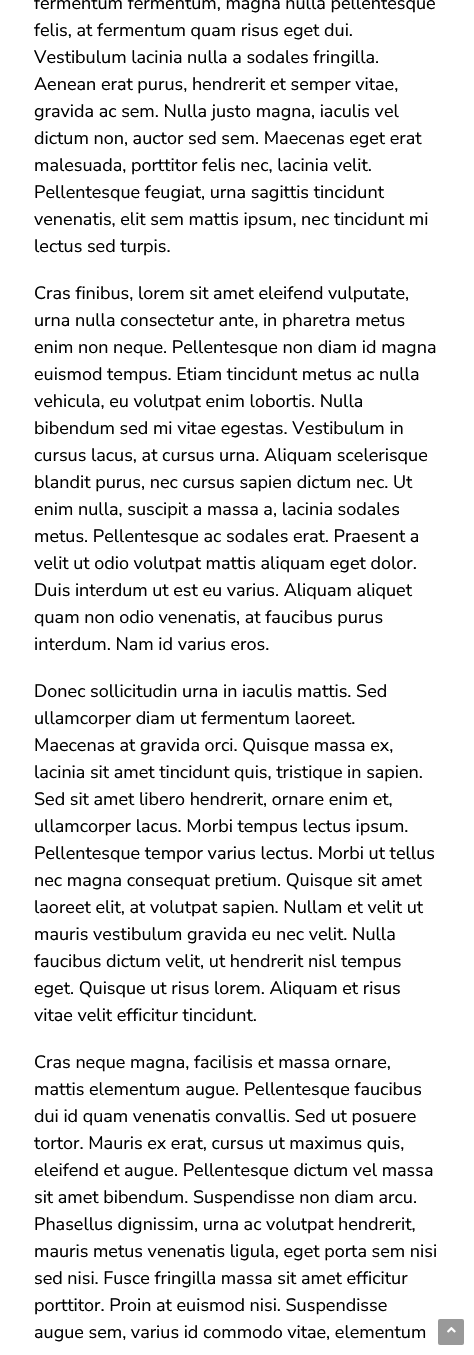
void draw(SkCanvas* canvas) {
	SkPaint fill;
	fill.setAntiAlias(true);
	auto makeFont = [&](const char* family, int weight, float size, bool italic = false) {
		SkFontStyle style(weight, SkFontStyle::kNormal_Width,
			italic ? SkFontStyle::kItalic_Slant : SkFontStyle::kUpright_Slant);
		SkFont result(fontMgr->matchFamilyStyle(family, style), size);
		result.setSubpixel(true);
		return result;
	};
	auto text = [&](const char* s, float x, float y, const SkFont& font) {
		canvas->drawString(s, x, y, font, fill);
	};
	auto roundBox = [&](float l, float t, float r, float b, float radius) {
		canvas->drawRoundRect(SkRect::MakeLTRB(l, t, r, b), radius, radius, fill);
	};
	auto picture = [&](const char* path, float l, float t, float r, float b) {
		auto image = SkImages::DeferredFromEncodedData(SkData::MakeFromFileName(path));
		canvas->drawImageRect(image, SkRect::MakeLTRB(l, t, r, b), SkSamplingOptions());
	};
	canvas->clear(0xFFFFFFFF);
	fill.setColor(0xFF999999);
	roundBox(438, 1319, 464, 1345, 2);
	picture("image0.png", 447, 1327, 456, 1333);
	auto font1 = makeFont("Nunito Sans", 400, 18);
	fill.setColor(0xFF000000);
	text("fermentum fermentum, magna nulla pellentesque", 34, 9, font1);
	text("felis, at fermentum quam risus eget dui.", 34, 36, font1);
	text("Vestibulum lacinia nulla a sodales fringilla.", 34, 63, font1);
	text("Aenean erat purus, hendrerit et semper vitae,", 34, 90, font1);
	text("gravida ac sem. Nulla justo magna, iaculis vel", 34, 117, font1);
	text("dictum non, auctor sed sem. Maecenas eget erat", 34, 144, font1);
	text("malesuada, porttitor felis nec, lacinia velit.", 34, 171, font1);
	text("Pellentesque feugiat, urna sagittis tincidunt", 34, 198, font1);
	text("venenatis, elit sem mattis ipsum, nec tincidunt mi", 34, 225, font1);
	text("lectus sed turpis.", 34, 252, font1);
	text("Cras finibus, lorem sit amet eleifend vulputate,", 34, 299, font1);
	text("urna nulla consectetur ante, in pharetra metus", 34, 326, font1);
	text("enim non neque. Pellentesque non diam id magna", 34, 353, font1);
	text("euismod tempus. Etiam tincidunt metus ac nulla", 34, 380, font1);
	text("vehicula, eu volutpat enim lobortis. Nulla", 34, 407, font1);
	text("bibendum sed mi vitae egestas. Vestibulum in", 34, 434, font1);
	text("cursus lacus, at cursus urna. Aliquam scelerisque", 34, 461, font1);
	text("blandit purus, nec cursus sapien dictum nec. Ut", 34, 488, font1);
	text("enim nulla, suscipit a massa a, lacinia sodales", 34, 515, font1);
	text("metus. Pellentesque ac sodales erat. Praesent a", 34, 542, font1);
	text("velit ut odio volutpat mattis aliquam eget dolor.", 34, 569, font1);
	text("Duis interdum ut est eu varius. Aliquam aliquet", 34, 596, font1);
	text("quam non odio venenatis, at faucibus purus", 34, 623, font1);
	text("interdum. Nam id varius eros.", 34, 650, font1);
	text("Donec sollicitudin urna in iaculis mattis. Sed", 34, 697, font1);
	text("ullamcorper diam ut fermentum laoreet.", 34, 724, font1);
	text("Maecenas at gravida orci. Quisque massa ex,", 34, 751, font1);
	text("lacinia sit amet tincidunt quis, tristique in sapien.", 34, 778, font1);
	text("Sed sit amet libero hendrerit, ornare enim et,", 34, 805, font1);
	text("ullamcorper lacus. Morbi tempus lectus ipsum.", 34, 832, font1);
	text("Pellentesque tempor varius lectus. Morbi ut tellus", 34, 859, font1);
	text("nec magna consequat pretium. Quisque sit amet", 34, 886, font1);
	text("laoreet elit, at volutpat sapien. Nullam et velit ut", 34, 913, font1);
	text("mauris vestibulum gravida eu nec velit. Nulla", 34, 940, font1);
	text("faucibus dictum velit, ut hendrerit nisl tempus", 34, 967, font1);
	text("eget. Quisque ut risus lorem. Aliquam et risus", 34, 994, font1);
	text("vitae velit efficitur tincidunt.", 34, 1021, font1);
	text("Cras neque magna, facilisis et massa ornare,", 34, 1068, font1);
	text("mattis elementum augue. Pellentesque faucibus", 34, 1095, font1);
	text("dui id quam venenatis convallis. Sed ut posuere", 34, 1122, font1);
	text("tortor. Mauris ex erat, cursus ut maximus quis,", 34, 1149, font1);
	text("eleifend et augue. Pellentesque dictum vel massa", 34, 1176, font1);
	text("sit amet bibendum. Suspendisse non diam arcu.", 34, 1203, font1);
	text("Phasellus dignissim, urna ac volutpat hendrerit,", 34, 1230, font1);
	text("mauris metus venenatis ligula, eget porta sem nisi", 34, 1257, font1);
	text("sed nisi. Fusce fringilla massa sit amet efficitur", 34, 1284, font1);
	text("porttitor. Proin at euismod nisi. Suspendisse", 34, 1311, font1);
	text("augue sem, varius id commodo vitae, elementum", 34, 1338, font1);
}
